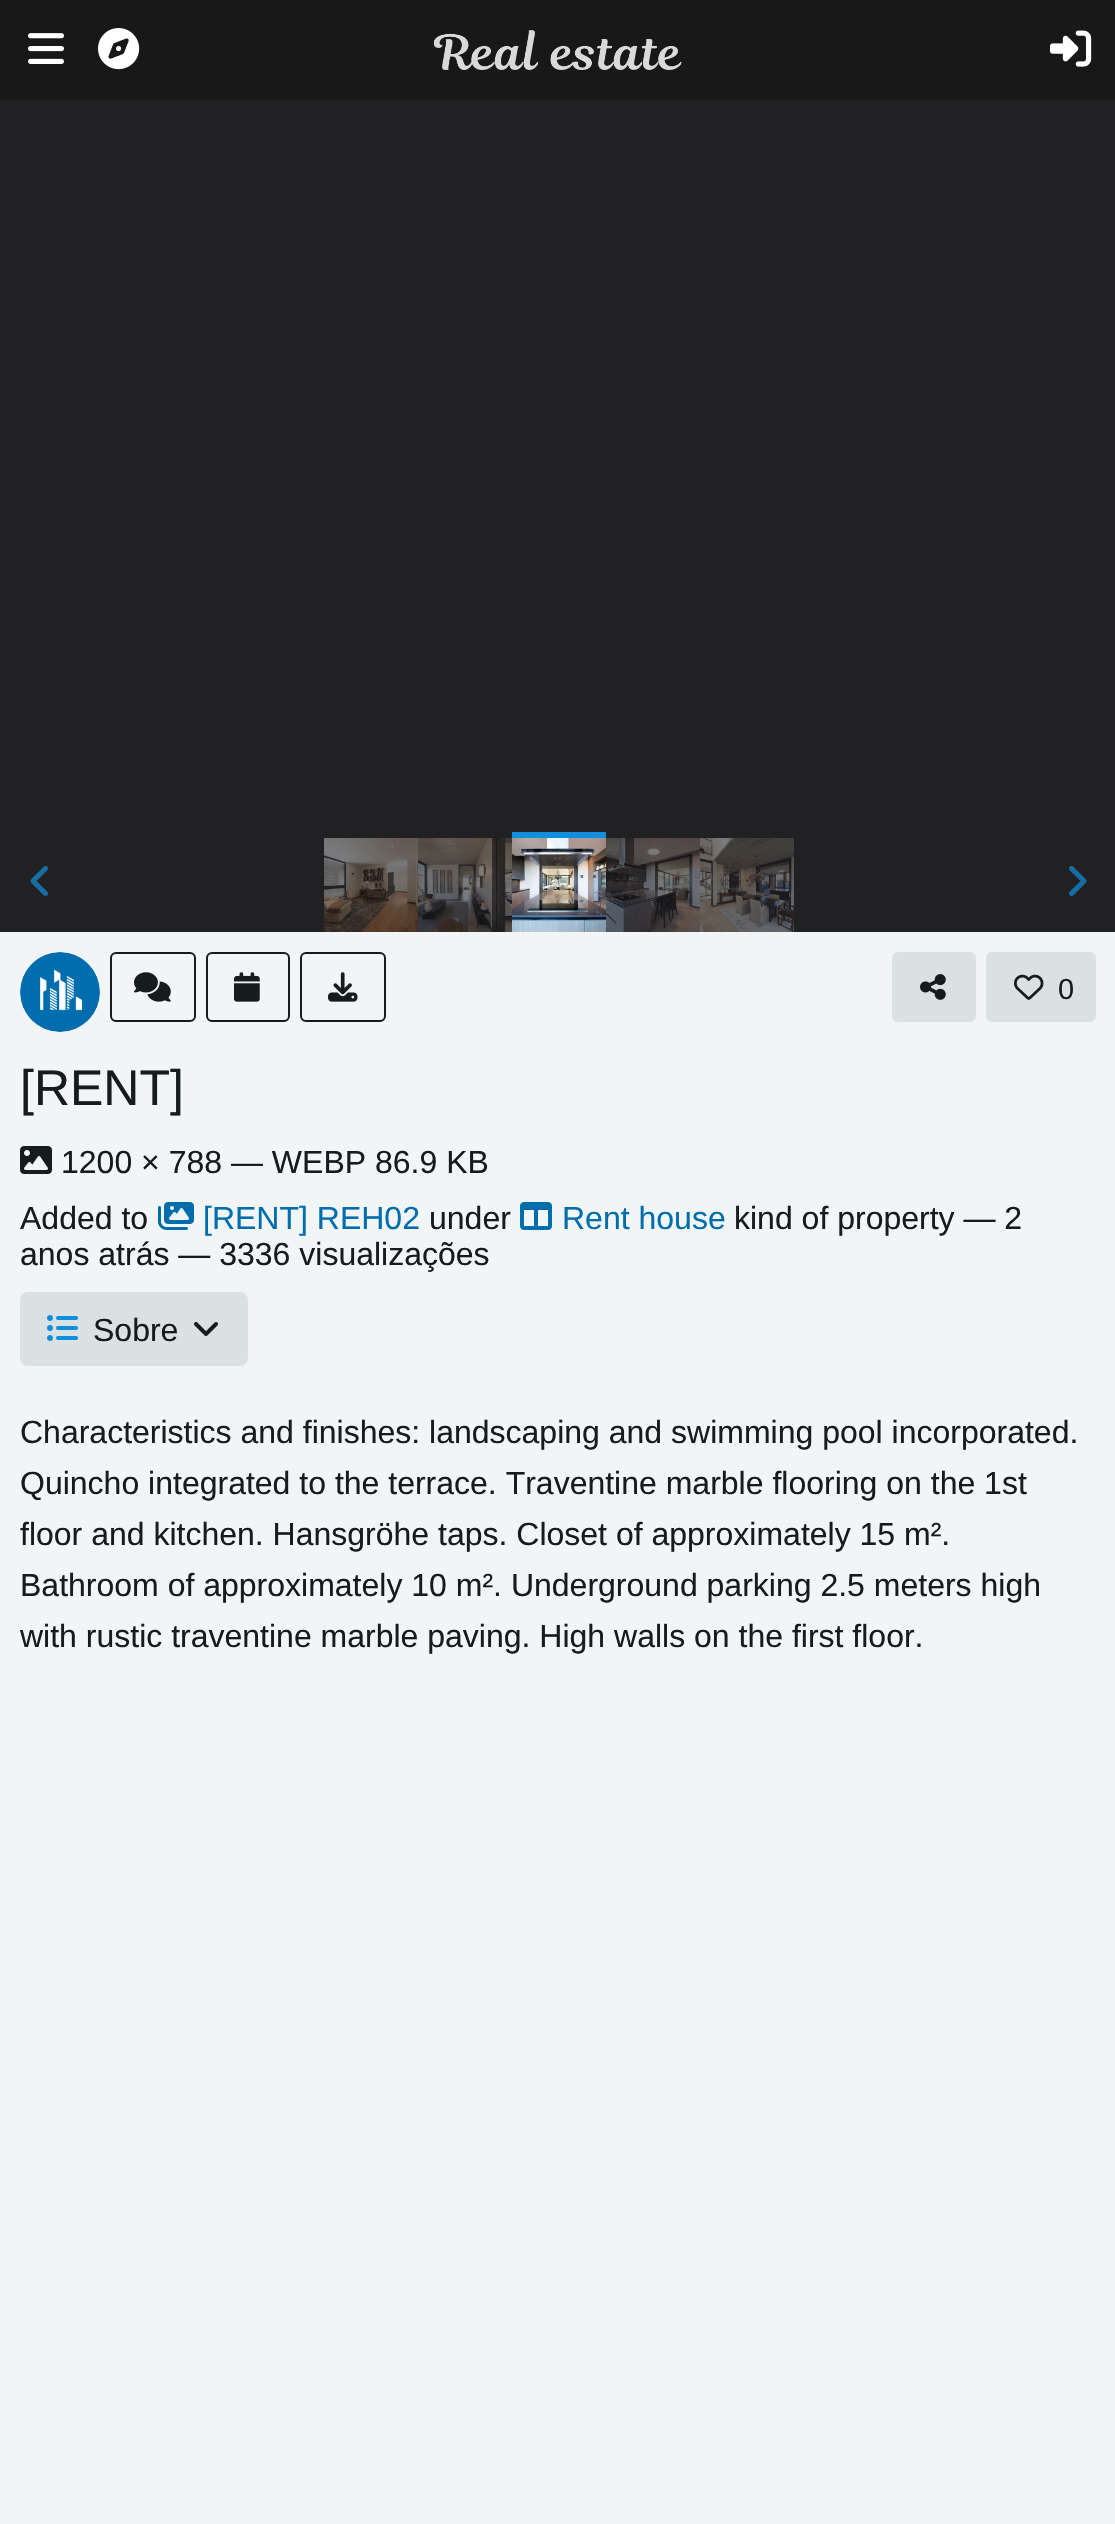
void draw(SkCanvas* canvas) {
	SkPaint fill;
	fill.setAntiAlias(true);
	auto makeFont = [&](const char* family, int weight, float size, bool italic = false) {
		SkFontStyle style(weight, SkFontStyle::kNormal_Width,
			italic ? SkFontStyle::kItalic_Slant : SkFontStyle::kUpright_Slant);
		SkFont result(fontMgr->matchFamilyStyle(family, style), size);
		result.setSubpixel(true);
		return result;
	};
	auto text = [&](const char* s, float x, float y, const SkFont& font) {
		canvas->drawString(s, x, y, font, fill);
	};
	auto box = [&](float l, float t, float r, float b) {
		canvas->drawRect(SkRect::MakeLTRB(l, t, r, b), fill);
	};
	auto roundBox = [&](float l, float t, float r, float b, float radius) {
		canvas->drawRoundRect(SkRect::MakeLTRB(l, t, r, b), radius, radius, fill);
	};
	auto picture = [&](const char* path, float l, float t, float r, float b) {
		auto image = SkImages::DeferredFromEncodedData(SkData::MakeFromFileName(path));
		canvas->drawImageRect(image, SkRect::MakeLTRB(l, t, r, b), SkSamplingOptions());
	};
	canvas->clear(0xFFF2F5F6);
	fill.setColor(0xFF181819);
	box(0, 0, 1115, 100);
	picture("image0.png", 28, 33, 64, 64);
	picture("image1.png", 98, 28, 140, 70);
	picture("image2.png", 433, 30, 682, 70);
	picture("image3.png", 1050, 30, 1092, 67);
	fill.setColor(0xFF212124);
	box(0, 100, 1115, 932);
	picture("image4.png", 324, 838, 418, 932);
	picture("image5.png", 418, 838, 512, 932);
	fill.setColor(0xFF128FDC);
	box(512, 832, 606, 838);
	picture("image6.png", 512, 838, 606, 932);
	picture("image7.png", 606, 838, 700, 932);
	picture("image8.png", 700, 838, 794, 932);
	picture("image9.png", 30, 866, 48, 896);
	picture("image10.png", 1069, 866, 1087, 896);
	picture("image11.png", 20, 952, 100, 1032);
	fill.setStyle(SkPaint::kStroke_Style);
	fill.setStrokeWidth(2);
	fill.setColor(0xFF161C1D);
	canvas->drawRoundRect(SkRect::MakeLTRB(111, 953, 195, 1021), 5, 5, fill);
	picture("image12.png", 134, 972, 171, 1002);
	canvas->drawRoundRect(SkRect::MakeLTRB(207, 953, 289, 1021), 5, 5, fill);
	picture("image13.png", 234, 972, 260, 1002);
	canvas->drawRoundRect(SkRect::MakeLTRB(301, 953, 385, 1021), 5, 5, fill);
	picture("image14.png", 328, 972, 358, 1002);
	fill.setStyle(SkPaint::kFill_Style);
	fill.setColor(0xFFD9E1E2);
	canvas->drawRoundRect(SkRect::MakeLTRB(893, 953, 975, 1021), 5, 5, fill);
	fill.setStyle(SkPaint::kStroke_Style);
	canvas->drawRoundRect(SkRect::MakeLTRB(893, 953, 975, 1021), 5, 5, fill);
	picture("image15.png", 920, 974, 946, 1000);
	fill.setStyle(SkPaint::kFill_Style);
	canvas->drawRoundRect(SkRect::MakeLTRB(987, 953, 1095, 1021), 5, 5, fill);
	fill.setStyle(SkPaint::kStroke_Style);
	canvas->drawRoundRect(SkRect::MakeLTRB(987, 953, 1095, 1021), 5, 5, fill);
	picture("image16.png", 1014, 974, 1044, 1000);
	picture("image17.png", 20, 1146, 52, 1174);
	picture("image18.png", 158, 1202, 194, 1230);
	picture("image19.png", 520, 1202, 552, 1230);
	fill.setStyle(SkPaint::kFill_Style);
	roundBox(20, 1292, 248, 1366, 8);
	picture("image20.png", 47, 1315, 78, 1341);
	picture("image21.png", 194, 1322, 218, 1336);
	auto font1 = makeFont("Liberation Sans", 400, 29);
	fill.setColor(0xFF161C1D);
	text("0", 1058, 999, font1);
	auto font2 = makeFont("Liberation Sans", 400, 50);
	text("[RENT]", 20, 1105, font2);
	auto font3 = makeFont("Liberation Sans", 400, 32);
	text("1200 × 788 — WEBP 86.9 KB", 61, 1173, font3);
	text("Added to", 20, 1229, font3);
	fill.setColor(0xFF006DAC);
	text("[RENT] REH02", 203, 1229, font3);
	fill.setColor(0xFF161C1D);
	text("under", 429, 1229, font3);
	fill.setColor(0xFF006DAC);
	text("Rent house", 562, 1229, font3);
	fill.setColor(0xFF161C1D);
	text("kind of property — 2", 734, 1229, font3);
	text("anos atrás — 3336 visualizações", 20, 1265, font3);
	text("Sobre", 93, 1341, font3);
	text("Characteristics and finishes: landscaping and swimming pool incorporated.", 20, 1443, font3);
	text("Quincho integrated to the terrace. Traventine marble flooring on the 1st", 20, 1494, font3);
	text("floor and kitchen. Hansgröhe taps. Closet of approximately 15 m².", 20, 1545, font3);
	text("Bathroom of approximately 10 m². Underground parking 2.5 meters high", 20, 1596, font3);
	text("with rustic traventine marble paving. High walls on the first floor.", 20, 1647, font3);
}
